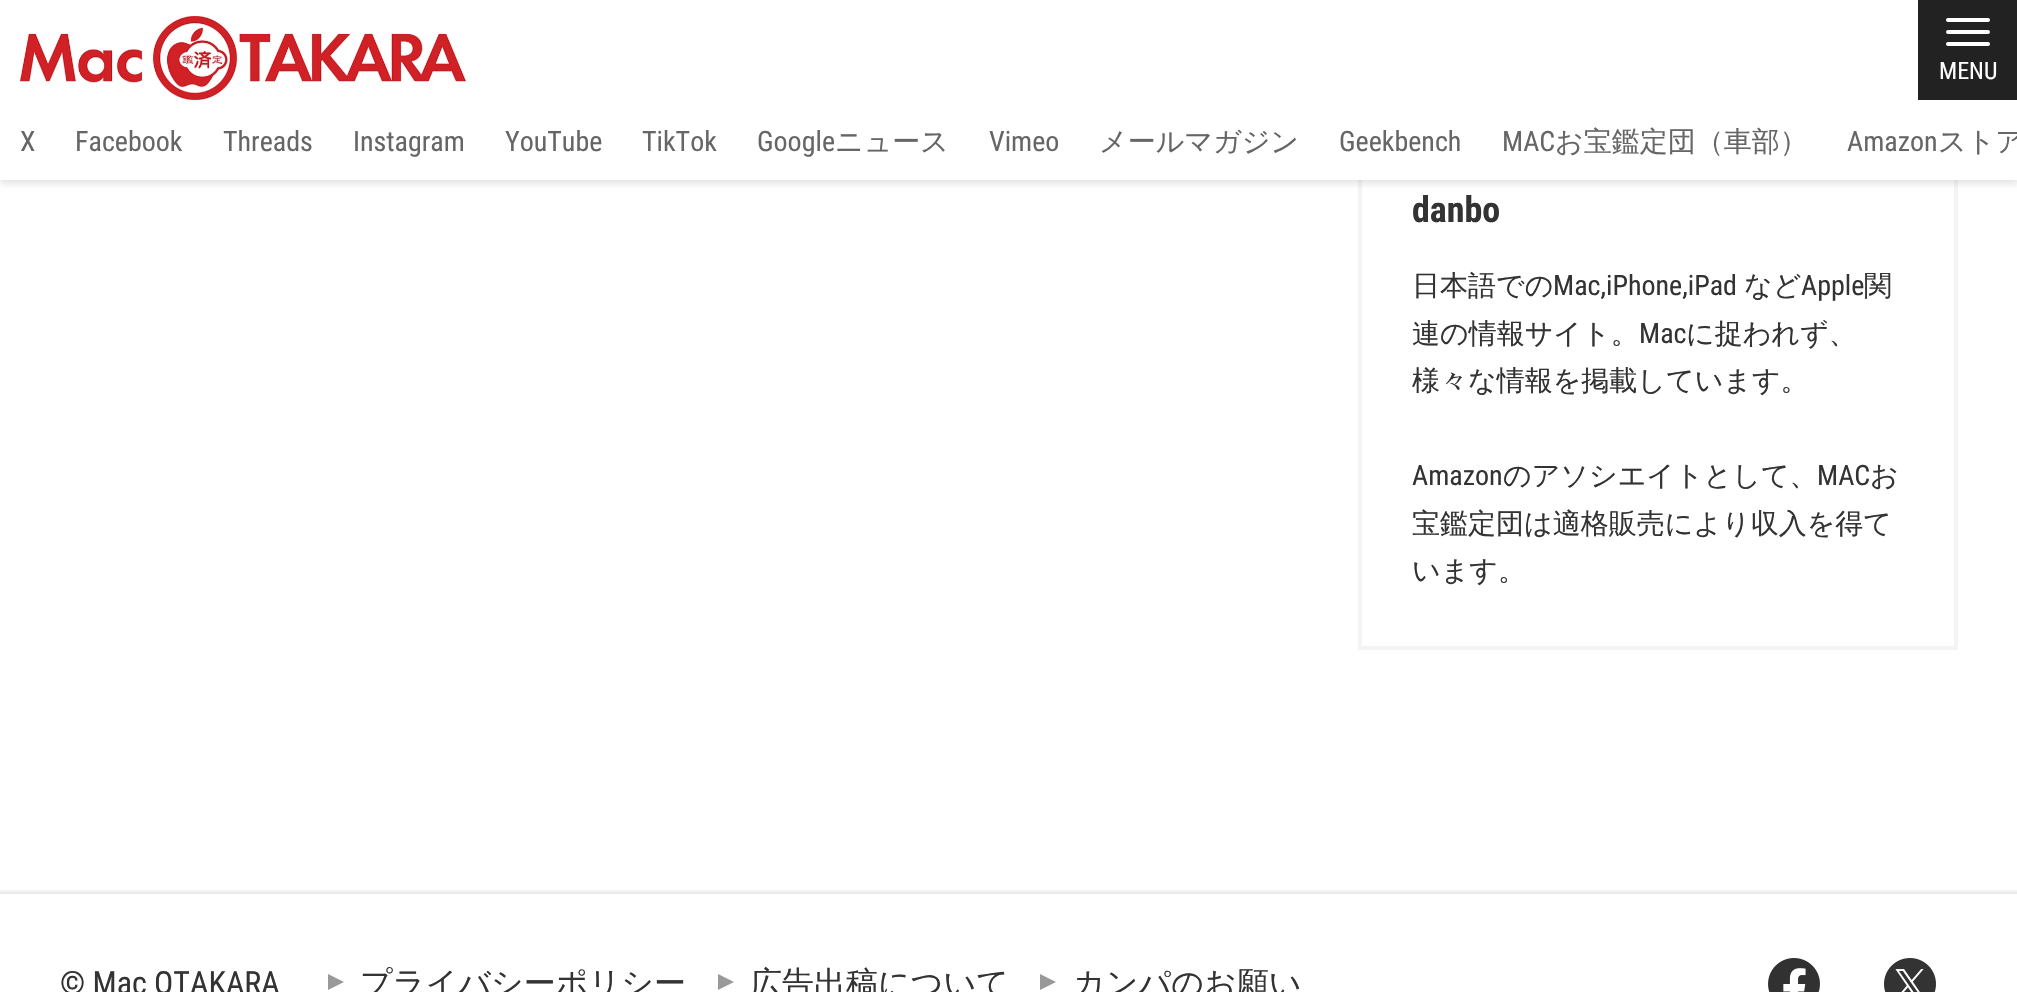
void draw(SkCanvas* canvas) {
	SkPaint fill;
	fill.setAntiAlias(true);
	auto makeFont = [&](const char* family, int weight, float size, bool italic = false) {
		SkFontStyle style(weight, SkFontStyle::kNormal_Width,
			italic ? SkFontStyle::kItalic_Slant : SkFontStyle::kUpright_Slant);
		SkFont result(fontMgr->matchFamilyStyle(family, style), size);
		result.setSubpixel(true);
		return result;
	};
	auto text = [&](const char* s, float x, float y, const SkFont& font) {
		canvas->drawString(s, x, y, font, fill);
	};
	auto box = [&](float l, float t, float r, float b) {
		canvas->drawRect(SkRect::MakeLTRB(l, t, r, b), fill);
	};
	auto roundBox = [&](float l, float t, float r, float b, float radius) {
		canvas->drawRoundRect(SkRect::MakeLTRB(l, t, r, b), radius, radius, fill);
	};
	auto picture = [&](const char* path, float l, float t, float r, float b) {
		auto image = SkImages::DeferredFromEncodedData(SkData::MakeFromFileName(path));
		canvas->drawImageRect(image, SkRect::MakeLTRB(l, t, r, b), SkSamplingOptions());
	};
	canvas->clear(0xFFFFFFFF);
	fill.setStyle(SkPaint::kStroke_Style);
	fill.setStrokeWidth(4);
	fill.setColor(0xFFF4F4F4);
	canvas->drawRect(SkRect::MakeLTRB(1360, -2, 1956, 648), fill);
	fill.setStyle(SkPaint::kFill_Style);
	fill.setColor(0x1A000000);
	fill.setMaskFilter(SkMaskFilter::MakeBlur(kNormal_SkBlurStyle, 3));
	canvas->drawRect(SkRect::MakeLTRB(0, 4, 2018, 184), fill);
	fill.setMaskFilter(nullptr);
	fill.setColor(0xFFFFFFFF);
	box(0, 0, 2017, 180);
	picture("image0.png", 20, 16, 466, 100);
	fill.setColor(0xFF222222);
	box(1918, 0, 2017, 100);
	fill.setColor(0xFFFFFFFF);
	roundBox(1946, 30, 1990, 34, 2);
	roundBox(1946, 18, 1990, 22, 2);
	roundBox(1946, 42, 1990, 46, 2);
	fill.setColor(0xFFF4F4F4);
	box(0, 890, 2017, 892);
	fill.setColor(0xFFEBEBEB);
	box(0, 892, 2017, 894);
	fill.setColor(0xFF999999);
	canvas->drawPath(SkPathBuilder().moveTo(328, 990).lineTo(328, 974).lineTo(344, 982).close().detach(), fill);
	canvas->drawPath(SkPathBuilder().moveTo(718, 990).lineTo(718, 974).lineTo(734, 982).close().detach(), fill);
	canvas->drawPath(SkPathBuilder().moveTo(1040, 990).lineTo(1040, 974).lineTo(1056, 982).close().detach(), fill);
	picture("image1.png", 1768, 958, 1820, 992);
	picture("image2.png", 1884, 958, 1936, 992);
	auto font1 = makeFont("Roboto Condensed", 400, 24);
	fill.setColor(0xFFFFFFFF);
	text("MENU", 1939, 79, font1);
	auto font2 = makeFont("Roboto Condensed", 400, 28);
	fill.setColor(0xFF666666);
	text("X", 20, 151, font2);
	text("Facebook", 75, 151, font2);
	text("Threads", 223, 151, font2);
	text("Instagram", 353, 151, font2);
	text("YouTube", 505, 151, font2);
	text("TikTok", 642, 151, font2);
	text("Google", 757, 151, font2);
	auto font3 = makeFont("WenQuanYi Zen Hei", 500, 28);
	text("ニュース", 835, 151, font3);
	text("Vimeo", 989, 151, font2);
	text("メールマガジン", 1099, 151, font3);
	text("Geekbench", 1339, 151, font2);
	text("MAC", 1502, 151, font2);
	text("お宝鑑定団（車部）", 1555, 151, font3);
	text("Amazon", 1847, 151, font2);
	text("ストア", 1938, 151, font3);
	auto font4 = makeFont("Roboto Condensed", 700, 36);
	fill.setColor(0xFF333333);
	text("danbo", 1412, 222, font4);
	text("日本語での", 1412, 295, font3);
	text("Mac,iPhone,iPad", 1553, 295, font2);
	text("など", 1744, 295, font3);
	text("Apple", 1801, 295, font2);
	text("関", 1864, 295, font3);
	text("連の情報サイト。", 1412, 343, font3);
	text("Mac", 1639, 343, font2);
	text("に捉われず、", 1686, 343, font3);
	text("様々な情報を掲載しています。", 1412, 390, font3);
	text("Amazon", 1412, 485, font2);
	text("のアソシエイトとして、", 1503, 485, font3);
	text("MAC", 1817, 485, font2);
	text("お", 1870, 485, font3);
	text("宝鑑定団は適格販売により収入を得て", 1412, 533, font3);
	text("います。", 1412, 580, font3);
	auto font5 = makeFont("Roboto Condensed", 400, 32);
	text("© Mac OTAKARA", 60, 994, font5);
	auto font6 = makeFont("WenQuanYi Zen Hei", 500, 32);
	text("プライバシーポリシー", 360, 994, font6);
	text("広告出稿について", 750, 994, font6);
	text("カンパのお願い", 1073, 994, font6);
}
